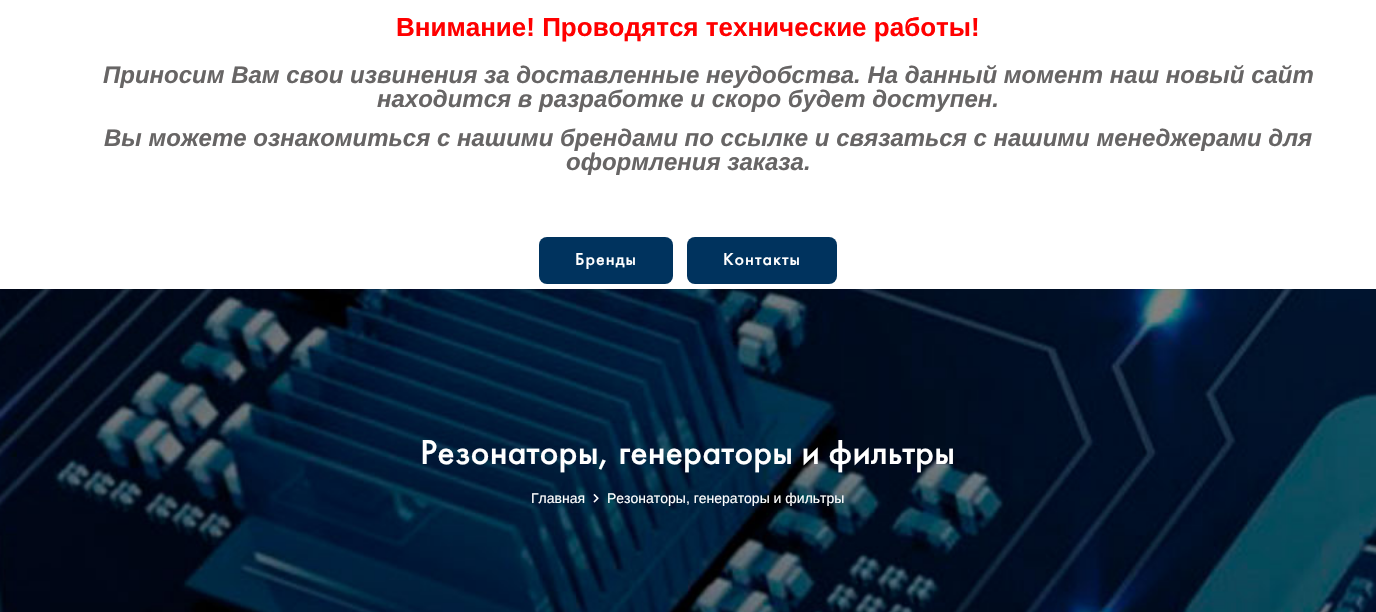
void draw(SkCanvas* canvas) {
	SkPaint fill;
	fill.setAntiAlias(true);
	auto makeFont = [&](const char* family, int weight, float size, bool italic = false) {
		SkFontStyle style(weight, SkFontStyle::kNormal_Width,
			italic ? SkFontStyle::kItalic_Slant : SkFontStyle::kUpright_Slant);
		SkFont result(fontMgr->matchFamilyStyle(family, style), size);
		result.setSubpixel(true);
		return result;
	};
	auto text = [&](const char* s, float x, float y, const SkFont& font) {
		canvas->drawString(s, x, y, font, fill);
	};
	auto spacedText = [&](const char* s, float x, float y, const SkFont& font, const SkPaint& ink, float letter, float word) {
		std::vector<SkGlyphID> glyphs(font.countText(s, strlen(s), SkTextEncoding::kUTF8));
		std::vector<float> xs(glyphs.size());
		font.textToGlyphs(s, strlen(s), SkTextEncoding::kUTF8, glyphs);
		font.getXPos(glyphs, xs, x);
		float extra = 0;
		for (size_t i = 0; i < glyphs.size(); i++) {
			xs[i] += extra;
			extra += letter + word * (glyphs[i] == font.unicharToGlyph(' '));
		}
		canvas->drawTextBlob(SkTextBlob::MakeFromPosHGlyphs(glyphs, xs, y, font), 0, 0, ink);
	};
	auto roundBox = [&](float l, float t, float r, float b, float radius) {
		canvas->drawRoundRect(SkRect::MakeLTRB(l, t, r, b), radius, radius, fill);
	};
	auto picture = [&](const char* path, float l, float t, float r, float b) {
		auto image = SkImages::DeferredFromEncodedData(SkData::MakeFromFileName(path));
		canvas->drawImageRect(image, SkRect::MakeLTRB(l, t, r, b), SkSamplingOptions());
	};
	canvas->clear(0xFFFFFFFF);
	fill.setColor(0xFF00335E);
	roundBox(539, 237, 673, 284, 8);
	roundBox(687, 237, 837, 284, 8);
	picture("image0.png", 0, 289, 1376, 612);
	picture("image1.png", 593, 494, 599, 503);
	auto font1 = makeFont("Liberation Sans", 700, 26);
	fill.setColor(0xFFFF0000);
	text("Внимание! Проводятся технические работы!", 396, 36, font1);
	auto font2 = makeFont("Liberation Sans", 700, 24, true);
	fill.setColor(0xFF676565);
	text("Приносим Вам свои извинения за доставленные неудобства. На данный момент наш новый сайт", 103, 83, font2);
	text("находится в разработке и скоро будет доступен.", 377, 107, font2);
	text("Вы можете ознакомиться с нашими брендами по ссылке и связаться с нашими менеджерами для", 104, 146, font2);
	text("оформления заказа.", 566, 170, font2);
	auto font3 = makeFont("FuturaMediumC", 500, 18);
	fill.setColor(0xFFFFFFFF);
	spacedText("Бренды", 575, 265, font3, fill, 1, 0);
	spacedText("Контакты", 723, 265, font3, fill, 1, 0);
	auto font4 = makeFont("FuturaMediumC", 500, 36);
	text("Резонаторы, генераторы и фильтры", 420, 464, font4);
	auto font5 = makeFont("Liberation Sans", 400, 14);
	text("Главная", 531, 503, font5);
	text("Резонаторы, генераторы и фильтры", 607, 503, font5);
}
